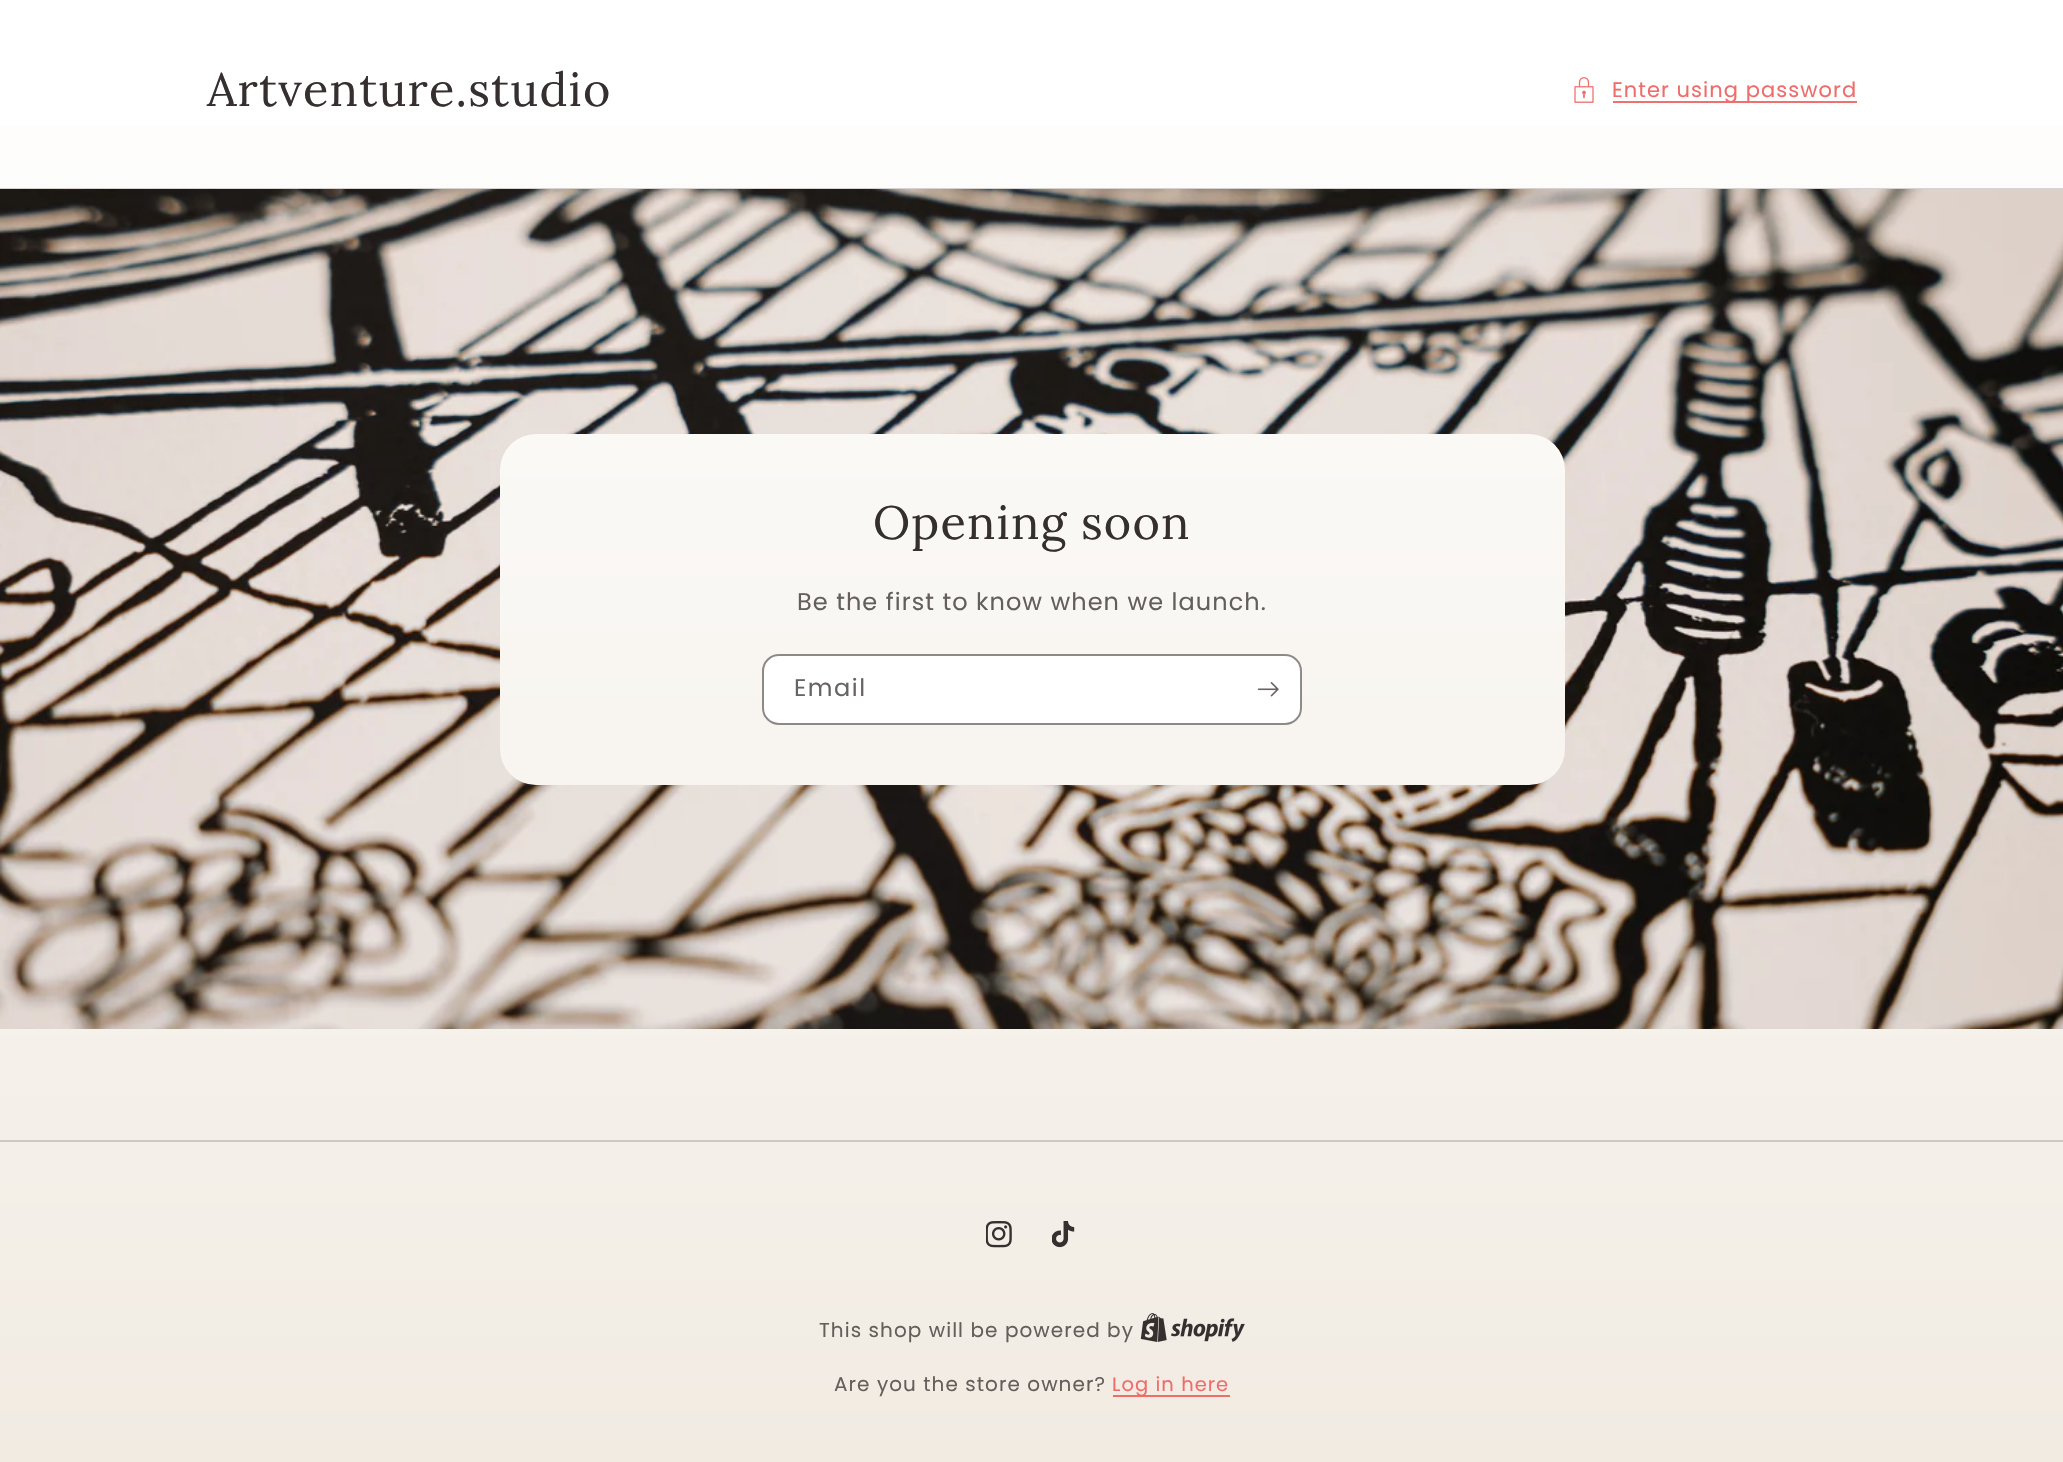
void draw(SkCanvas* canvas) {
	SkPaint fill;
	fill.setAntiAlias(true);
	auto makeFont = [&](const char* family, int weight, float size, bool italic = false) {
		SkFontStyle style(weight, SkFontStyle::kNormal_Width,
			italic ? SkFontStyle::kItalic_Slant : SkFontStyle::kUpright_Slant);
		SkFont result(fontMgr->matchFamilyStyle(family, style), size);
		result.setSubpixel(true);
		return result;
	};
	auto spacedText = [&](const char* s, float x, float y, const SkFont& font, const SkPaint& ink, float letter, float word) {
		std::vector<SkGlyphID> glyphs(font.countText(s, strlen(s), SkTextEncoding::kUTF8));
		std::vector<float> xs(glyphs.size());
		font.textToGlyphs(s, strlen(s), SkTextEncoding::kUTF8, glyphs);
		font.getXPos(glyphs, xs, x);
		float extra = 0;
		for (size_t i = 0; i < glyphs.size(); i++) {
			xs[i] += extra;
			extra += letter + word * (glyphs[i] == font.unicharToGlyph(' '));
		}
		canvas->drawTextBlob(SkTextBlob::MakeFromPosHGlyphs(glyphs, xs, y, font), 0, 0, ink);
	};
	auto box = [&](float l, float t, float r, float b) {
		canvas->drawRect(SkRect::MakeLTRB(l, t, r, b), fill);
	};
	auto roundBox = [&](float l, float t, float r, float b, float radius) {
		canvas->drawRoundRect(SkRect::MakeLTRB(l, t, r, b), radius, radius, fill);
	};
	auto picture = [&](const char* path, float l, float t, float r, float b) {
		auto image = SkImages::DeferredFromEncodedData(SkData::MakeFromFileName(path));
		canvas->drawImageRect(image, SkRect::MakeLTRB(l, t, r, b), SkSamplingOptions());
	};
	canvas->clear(0xFFFFFFFF);
	{
		const SkColor colors[] = {0xFFFFFFFF, 0xFFF1EBE2};
		const float stops[] = {0, 1};
		const SkPoint ends[] = {{1032, 0}, {1032, 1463}};
		fill.setShader(SkGradientShader::MakeLinear(ends, colors, stops, 2, SkTileMode::kClamp));
		fill.setAlpha(255);
	}
	box(0, 126, 2063, 1462);
	picture("image0.png", 1574, 77, 1594, 103);
	fill.setShader(nullptr);
	fill.setColor(0xFFF06F6F);
	box(1613, 101, 1857, 103);
	fill.setColor(0xFFD5D3D2);
	box(0, 188, 2063, 189);
	picture("image1.png", 0, 189, 2063, 1029);
	{
		const SkColor colors[] = {0xFFFFFFFF, 0xFFF1EBE2};
		const float stops[] = {0, 1};
		const SkPoint ends[] = {{1032, 0}, {1032, 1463}};
		fill.setShader(SkGradientShader::MakeLinear(ends, colors, stops, 2, SkTileMode::kClamp));
		fill.setAlpha(255);
	}
	roundBox(500, 434, 1565, 785, 36);
	fill.setShader(nullptr);
	fill.setColor(0xFFFFFFFF);
	roundBox(764, 656, 1301, 723, 15);
	fill.setStyle(SkPaint::kStroke_Style);
	fill.setStrokeWidth(2);
	fill.setColor(0x8C362F2F);
	canvas->drawRoundRect(SkRect::MakeLTRB(763, 655, 1301, 724), 16, 16, fill);
	picture("image2.png", 1257, 682, 1279, 697);
	fill.setStyle(SkPaint::kFill_Style);
	fill.setColor(0xFFCEC9C3);
	box(0, 1140, 2063, 1142);
	picture("image3.png", 986, 1221, 1012, 1248);
	picture("image4.png", 1052, 1221, 1075, 1248);
	picture("image5.png", 1140, 1313, 1245, 1342);
	fill.setColor(0xFFEF6D6B);
	box(1113, 1395, 1230, 1397);
	auto font1 = makeFont("Lora", 400, 46.75f);
	fill.setColor(0xFF362F2F);
	spacedText("Artventure.studio", 207, 106, font1, fill, 1.2f, 0);
	auto font2 = makeFont("Poppins", 400, 21);
	fill.setColor(0xFFEF6C6B);
	spacedText("Enter using password", 1612, 97, font2, fill, 1.05f, 0);
	fill.setColor(0xFF362F2F);
	spacedText("Opening soon", 873, 539, font1, fill, 1.2f, 0);
	auto font3 = makeFont("Poppins", 400, 24);
	fill.setColor(0xFF655F5C);
	spacedText("Be the first to know when we launch.", 797, 610, font3, fill, 1.05f, 0);
	fill.setColor(0xFF686363);
	spacedText("Email", 794, 696, font3, fill, 1.5f, 0);
	auto font4 = makeFont("Poppins", 400, 20);
	fill.setColor(0xFF655F5C);
	spacedText("This shop will be powered by", 819, 1337, font4, fill, 1.05f, 0);
	spacedText("Are you the store owner?", 834, 1391, font4, fill, 1.05f, 0);
	auto font5 = makeFont("Poppins", 400, 19.5f);
	fill.setColor(0xFFEF6C6B);
	spacedText("Log in here", 1112, 1391, font5, fill, 1.05f, 0);
}
